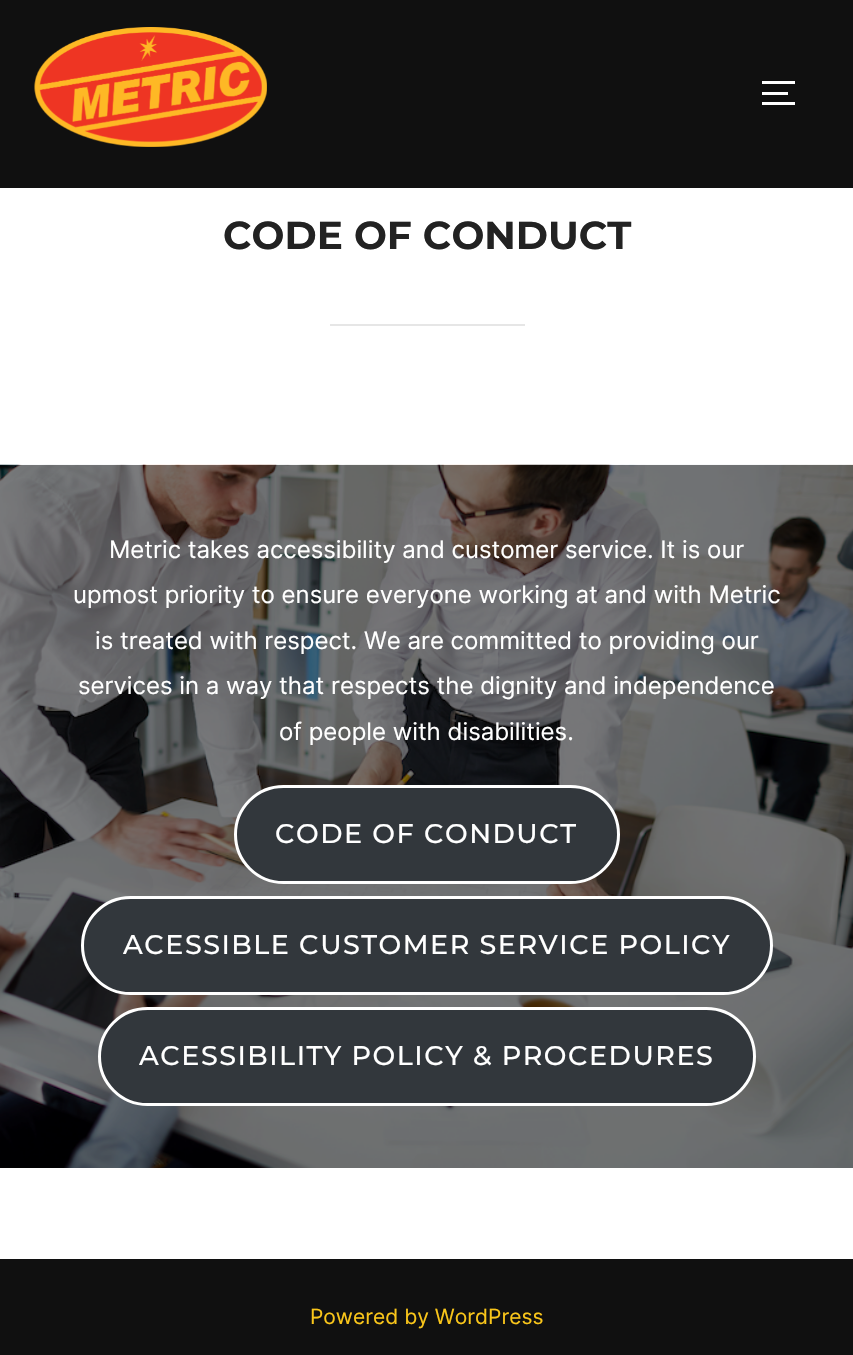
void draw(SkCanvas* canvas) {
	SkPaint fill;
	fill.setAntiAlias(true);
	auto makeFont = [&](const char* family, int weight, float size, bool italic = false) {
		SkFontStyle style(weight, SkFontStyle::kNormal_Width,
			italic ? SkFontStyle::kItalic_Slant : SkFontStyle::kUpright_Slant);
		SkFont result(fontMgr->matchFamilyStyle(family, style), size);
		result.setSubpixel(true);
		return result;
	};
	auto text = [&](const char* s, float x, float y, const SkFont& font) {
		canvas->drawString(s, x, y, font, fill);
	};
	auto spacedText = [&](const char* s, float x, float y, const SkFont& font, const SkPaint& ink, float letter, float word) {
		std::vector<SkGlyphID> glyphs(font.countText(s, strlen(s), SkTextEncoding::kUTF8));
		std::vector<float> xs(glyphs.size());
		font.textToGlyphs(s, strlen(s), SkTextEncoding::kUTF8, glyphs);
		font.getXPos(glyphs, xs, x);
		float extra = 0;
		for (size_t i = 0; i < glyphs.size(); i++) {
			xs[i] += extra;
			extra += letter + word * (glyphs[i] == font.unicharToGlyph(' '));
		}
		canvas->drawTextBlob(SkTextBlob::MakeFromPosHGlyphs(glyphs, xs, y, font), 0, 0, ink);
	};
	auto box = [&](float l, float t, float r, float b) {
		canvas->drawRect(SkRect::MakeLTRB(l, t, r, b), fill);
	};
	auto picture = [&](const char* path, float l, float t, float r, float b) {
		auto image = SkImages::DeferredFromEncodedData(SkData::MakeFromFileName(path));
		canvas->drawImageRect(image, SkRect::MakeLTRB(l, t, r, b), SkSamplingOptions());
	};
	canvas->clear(0xFFFFFFFF);
	fill.setColor(0xFF101010);
	box(0, 0, 853, 188);
	picture("image0.png", 34, 27, 267, 147);
	fill.setColor(0xFFFFFFFF);
	box(762, 81, 795, 84);
	box(762, 92, 788, 95);
	box(762, 102, 795, 105);
	fill.setColor(0xFFE6E6E6);
	box(330, 324, 525, 326);
	picture("image1.png", 0, 464, 853, 1168);
	fill.setColor(0xFF32373C);
	canvas->drawRoundRect(SkRect::MakeLTRB(235.5f, 786.5f, 618.5f, 882.5f), 48, 48, fill);
	fill.setStyle(SkPaint::kStroke_Style);
	fill.setStrokeWidth(3);
	fill.setColor(0xFFFFFFFF);
	canvas->drawRoundRect(SkRect::MakeLTRB(235.5f, 786.5f, 618.5f, 882.5f), 48, 48, fill);
	fill.setStyle(SkPaint::kFill_Style);
	fill.setColor(0xFF32373C);
	canvas->drawRoundRect(SkRect::MakeLTRB(82.5f, 897.5f, 771.5f, 993.5f), 48, 48, fill);
	fill.setStyle(SkPaint::kStroke_Style);
	fill.setColor(0xFFFFFFFF);
	canvas->drawRoundRect(SkRect::MakeLTRB(82.5f, 897.5f, 771.5f, 993.5f), 48, 48, fill);
	fill.setStyle(SkPaint::kFill_Style);
	fill.setColor(0xFF32373C);
	canvas->drawRoundRect(SkRect::MakeLTRB(99.5f, 1008.5f, 754.5f, 1104.5f), 48, 48, fill);
	fill.setStyle(SkPaint::kStroke_Style);
	fill.setColor(0xFFFFFFFF);
	canvas->drawRoundRect(SkRect::MakeLTRB(99.5f, 1008.5f, 754.5f, 1104.5f), 48, 48, fill);
	fill.setStyle(SkPaint::kFill_Style);
	fill.setColor(0xFF101010);
	box(0, 1259, 853, 1355);
	auto font1 = makeFont("Montserrat", 700, 39);
	fill.setColor(0xFF222222);
	text("CODE OF CONDUCT", 223, 249, font1);
	auto font2 = makeFont("Inter", 400, 24);
	fill.setColor(0xFFFFFFFF);
	text("Metric takes accessibility and customer service. It is our", 109, 558, font2);
	text("upmost priority to ensure everyone working at and with Metric", 73, 603, font2);
	text("is treated with respect. We are committed to providing our", 95, 649, font2);
	text("services in a way that respects the dignity and independence", 78, 694, font2);
	text("of people with disabilities.", 279, 740, font2);
	auto font3 = makeFont("Montserrat", 500, 27);
	spacedText("CODE OF CONDUCT", 275, 843, font3, fill, 1.5f, 0);
	spacedText("ACESSIBLE CUSTOMER SERVICE POLICY", 123, 954, font3, fill, 1.5f, 0);
	spacedText("ACESSIBILITY POLICY & PROCEDURES", 139, 1065, font3, fill, 1.5f, 0);
	auto font4 = makeFont("Inter", 400, 21);
	fill.setColor(0xFFFAC61A);
	text("Powered by WordPress", 310, 1324, font4);
}
